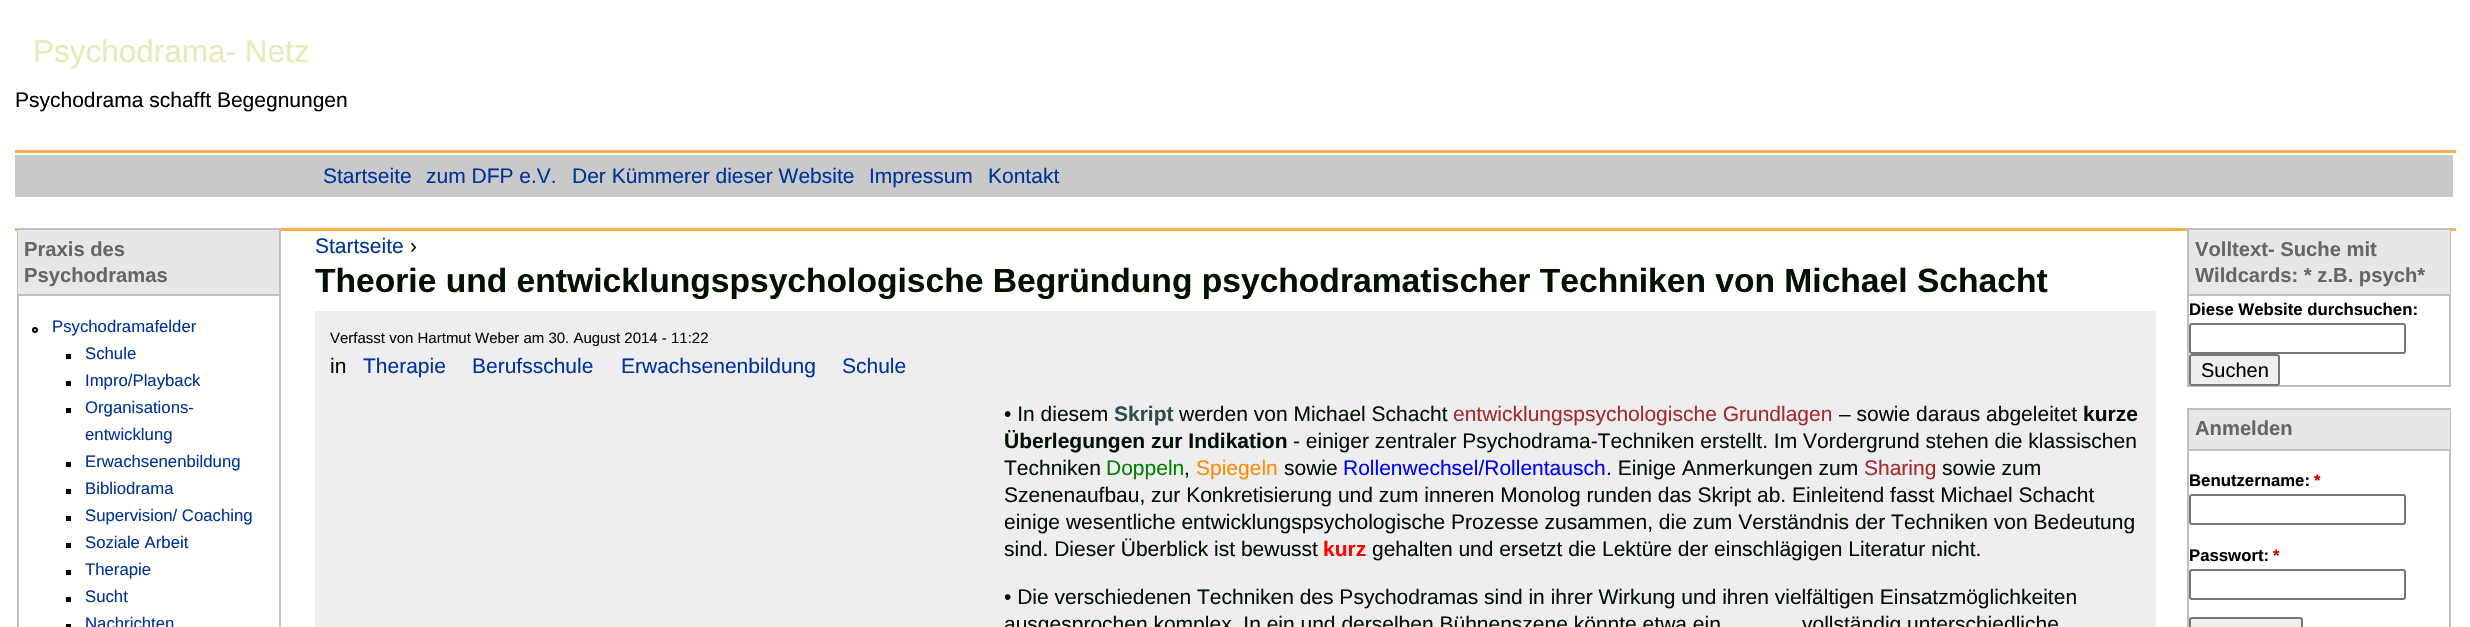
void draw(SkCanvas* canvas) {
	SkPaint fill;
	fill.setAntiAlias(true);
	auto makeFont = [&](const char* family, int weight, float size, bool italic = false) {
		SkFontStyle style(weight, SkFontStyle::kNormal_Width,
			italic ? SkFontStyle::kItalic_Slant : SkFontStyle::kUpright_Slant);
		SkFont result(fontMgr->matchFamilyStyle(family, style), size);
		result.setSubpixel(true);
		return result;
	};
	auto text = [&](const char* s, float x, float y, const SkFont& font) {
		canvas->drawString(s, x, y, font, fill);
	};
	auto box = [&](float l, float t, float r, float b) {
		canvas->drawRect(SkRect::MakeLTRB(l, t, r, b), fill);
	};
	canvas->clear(0xFFFFFFFC);
	fill.setColor(0xFFFFAC4F);
	box(15, 150, 2456, 153);
	fill.setColor(0xFFC9C9C9);
	box(15, 155, 2453, 197);
	fill.setColor(0xFFFFAC4F);
	box(15, 228, 2456, 231);
	fill.setStyle(SkPaint::kStroke_Style);
	fill.setStrokeWidth(2);
	fill.setColor(0xFFC0C0C0);
	canvas->drawRect(SkRect::MakeLTRB(18, 229, 280, 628), fill);
	fill.setStyle(SkPaint::kFill_Style);
	fill.setColor(0xFFE7E7E7);
	box(18, 230, 279, 294);
	fill.setColor(0xFFC0C0C0);
	box(18, 294, 279, 296);
	fill.setStyle(SkPaint::kStroke_Style);
	fill.setColor(0xFF000000);
	canvas->drawCircle(35, 330, 2, fill);
	fill.setStyle(SkPaint::kFill_Style);
	box(66, 354, 71, 359);
	box(66, 381, 71, 386);
	box(66, 408, 71, 413);
	box(66, 462, 71, 467);
	box(66, 489, 71, 494);
	box(66, 516, 71, 521);
	box(66, 543, 71, 548);
	box(66, 570, 71, 575);
	box(66, 597, 71, 602);
	box(66, 624, 71, 627);
	fill.setColor(0xFFEEEEF0);
	box(315, 311, 2156, 627);
	fill.setStyle(SkPaint::kStroke_Style);
	fill.setColor(0xFFC0C0C0);
	canvas->drawRect(SkRect::MakeLTRB(2188, 229, 2450, 386), fill);
	fill.setStyle(SkPaint::kFill_Style);
	fill.setColor(0xFFE7E7E7);
	box(2189, 230, 2450, 294);
	fill.setColor(0xFFC0C0C0);
	box(2189, 294, 2450, 296);
	fill.setColor(0xFFFFFFFF);
	canvas->drawRoundRect(SkRect::MakeLTRB(2190, 324, 2405, 353), 2, 2, fill);
	fill.setStyle(SkPaint::kStroke_Style);
	fill.setColor(0xFF767676);
	canvas->drawRoundRect(SkRect::MakeLTRB(2190, 324, 2405, 353), 2, 2, fill);
	fill.setStyle(SkPaint::kFill_Style);
	fill.setColor(0xFFEFEFEF);
	canvas->drawRoundRect(SkRect::MakeLTRB(2190, 355, 2279, 385), 2, 2, fill);
	fill.setStyle(SkPaint::kStroke_Style);
	fill.setColor(0xFF767676);
	canvas->drawRoundRect(SkRect::MakeLTRB(2190, 355, 2279, 385), 2, 2, fill);
	fill.setColor(0xFFC0C0C0);
	canvas->drawRect(SkRect::MakeLTRB(2188, 409, 2450, 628), fill);
	fill.setStyle(SkPaint::kFill_Style);
	fill.setColor(0xFFE7E7E7);
	box(2189, 410, 2450, 449);
	fill.setColor(0xFFC0C0C0);
	box(2189, 449, 2450, 451);
	fill.setColor(0xFFFFFFFF);
	canvas->drawRoundRect(SkRect::MakeLTRB(2190, 495, 2405, 524), 2, 2, fill);
	fill.setStyle(SkPaint::kStroke_Style);
	fill.setColor(0xFF767676);
	canvas->drawRoundRect(SkRect::MakeLTRB(2190, 495, 2405, 524), 2, 2, fill);
	fill.setStyle(SkPaint::kFill_Style);
	fill.setColor(0xFFFFFFFF);
	canvas->drawRoundRect(SkRect::MakeLTRB(2190, 570, 2405, 599), 2, 2, fill);
	fill.setStyle(SkPaint::kStroke_Style);
	fill.setColor(0xFF767676);
	canvas->drawRoundRect(SkRect::MakeLTRB(2190, 570, 2405, 599), 2, 2, fill);
	fill.setStyle(SkPaint::kFill_Style);
	fill.setColor(0xFFEFEFEF);
	canvas->drawRoundRect(SkRect::MakeLTRB(2190, 618, 2302, 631), 2, 2, fill);
	fill.setStyle(SkPaint::kStroke_Style);
	fill.setColor(0xFF767676);
	canvas->drawRoundRect(SkRect::MakeLTRB(2190, 618, 2302, 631), 2, 2, fill);
	auto font1 = makeFont("Liberation Sans", 400, 31.5f);
	fill.setStyle(SkPaint::kFill_Style);
	fill.setColor(0xFFE8EABD);
	text("Psychodrama- Netz", 33, 62, font1);
	auto font2 = makeFont("Liberation Sans", 400, 21);
	fill.setColor(0xFF000000);
	text("Psychodrama schafft Begegnungen", 15, 107, font2);
	fill.setColor(0xFF003399);
	text("Startseite", 323, 183, font2);
	text("zum DFP e.V.", 426, 183, font2);
	text("Der Kümmerer dieser Website", 572, 183, font2);
	text("Impressum", 869, 183, font2);
	text("Kontakt", 988, 183, font2);
	auto font3 = makeFont("Liberation Sans", 700, 20.2f);
	fill.setColor(0xFF666666);
	text("Praxis des", 24, 256, font3);
	text("Psychodramas", 24, 282, font3);
	auto font4 = makeFont("Liberation Sans", 400, 16.75f);
	fill.setColor(0xFF003399);
	text("Psychodramafelder", 52, 332, font4);
	text("Schule", 85, 359, font4);
	text("Impro/Playback", 85, 386, font4);
	text("Organisations-", 85, 413, font4);
	text("entwicklung", 85, 440, font4);
	text("Erwachsenenbildung", 85, 467, font4);
	text("Bibliodrama", 85, 494, font4);
	text("Supervision/ Coaching", 85, 521, font4);
	text("Soziale Arbeit", 85, 548, font4);
	text("Therapie", 85, 575, font4);
	text("Sucht", 85, 602, font4);
	text("Nachrichten", 85, 629, font4);
	text("Startseite", 315, 253, font2);
	fill.setColor(0xFF001200);
	text("›", 410, 253, font2);
	auto font5 = makeFont("Liberation Sans", 700, 33.6f);
	text("Theorie und entwicklungspsychologische Begründung psychodramatischer Techniken von Michael Schacht", 315, 292, font5);
	auto font6 = makeFont("Liberation Sans", 400, 15);
	text("Verfasst von Hartmut Weber am 30. August 2014 - 11:22", 330, 343, font6);
	text("in", 330, 373, font2);
	fill.setColor(0xFF003399);
	text("Therapie", 363, 373, font2);
	text("Berufsschule", 472, 373, font2);
	text("Erwachsenenbildung", 621, 373, font2);
	text("Schule", 842, 373, font2);
	fill.setColor(0xFF001200);
	text("• In diesem", 1004, 421, font2);
	auto font7 = makeFont("Liberation Sans", 700, 21);
	fill.setColor(0xFF2F4F4F);
	text("Skript", 1114, 421, font7);
	fill.setColor(0xFF001200);
	text("werden von Michael Schacht", 1179, 421, font2);
	fill.setColor(0xFFA52A2A);
	text("entwicklungspsychologische Grundlagen", 1453, 421, font2);
	fill.setColor(0xFF001200);
	text("– sowie daraus abgeleitet", 1839, 421, font2);
	text("kurze", 2083, 421, font7);
	text("Überlegungen zur Indikation", 1004, 448, font7);
	text("- einiger zentraler Psychodrama-Techniken erstellt. Im Vordergrund stehen die klassischen", 1293, 448, font2);
	text("Techniken", 1004, 475, font2);
	fill.setColor(0xFF008000);
	text("Doppeln", 1106, 475, font2);
	fill.setColor(0xFF001200);
	text(",", 1184, 475, font2);
	fill.setColor(0xFFFF8C00);
	text("Spiegeln", 1196, 475, font2);
	fill.setColor(0xFF001200);
	text("sowie", 1284, 475, font2);
	fill.setColor(0xFF0000FF);
	text("Rollenwechsel/Rollentausch", 1343, 475, font2);
	fill.setColor(0xFF001200);
	text(". Einige Anmerkungen zum", 1606, 475, font2);
	fill.setColor(0xFFA52A2A);
	text("Sharing", 1864, 475, font2);
	fill.setColor(0xFF001200);
	text("sowie zum", 1942, 475, font2);
	text("Szenenaufbau, zur Konkretisierung und zum inneren Monolog runden das Skript ab. Einleitend fasst Michael Schacht", 1004, 502, font2);
	text("einige wesentliche entwicklungspsychologische Prozesse zusammen, die zum Verständnis der Techniken von Bedeutung", 1004, 529, font2);
	text("sind. Dieser Überblick ist bewusst", 1004, 556, font2);
	fill.setColor(0xFFFF0000);
	text("kurz", 1323, 556, font7);
	fill.setColor(0xFF001200);
	text("gehalten und ersetzt die Lektüre der einschlägigen Literatur nicht.", 1372, 556, font2);
	text("• Die verschiedenen Techniken des Psychodramas sind in ihrer Wirkung und ihren vielfältigen Einsatzmöglichkeiten", 1004, 604, font2);
	text("ausgesprochen komplex. In ein und derselben Bühnenszene könnte etwa ein", 1004, 631, font2);
	text("vollständig unterschiedliche", 1802, 631, font2);
	fill.setColor(0xFF666666);
	text("Volltext- Suche mit", 2195, 256, font3);
	text("Wildcards: * z.B. psych*", 2195, 282, font3);
	auto font8 = makeFont("Liberation Sans", 700, 16.75f);
	fill.setColor(0xFF000000);
	text("Diese Website durchsuchen:", 2189, 315, font8);
	auto font9 = makeFont("Liberation Sans", 400, 20);
	text("Suchen", 2201, 377, font9);
	fill.setColor(0xFF666666);
	text("Anmelden", 2195, 435, font3);
	fill.setColor(0xFF000000);
	text("Benutzername:", 2189, 486, font8);
	fill.setColor(0xFFCC0000);
	text("*", 2314, 486, font8);
	fill.setColor(0xFF000000);
	text("Passwort:", 2189, 561, font8);
	fill.setColor(0xFFCC0000);
	text("*", 2273, 561, font8);
}
